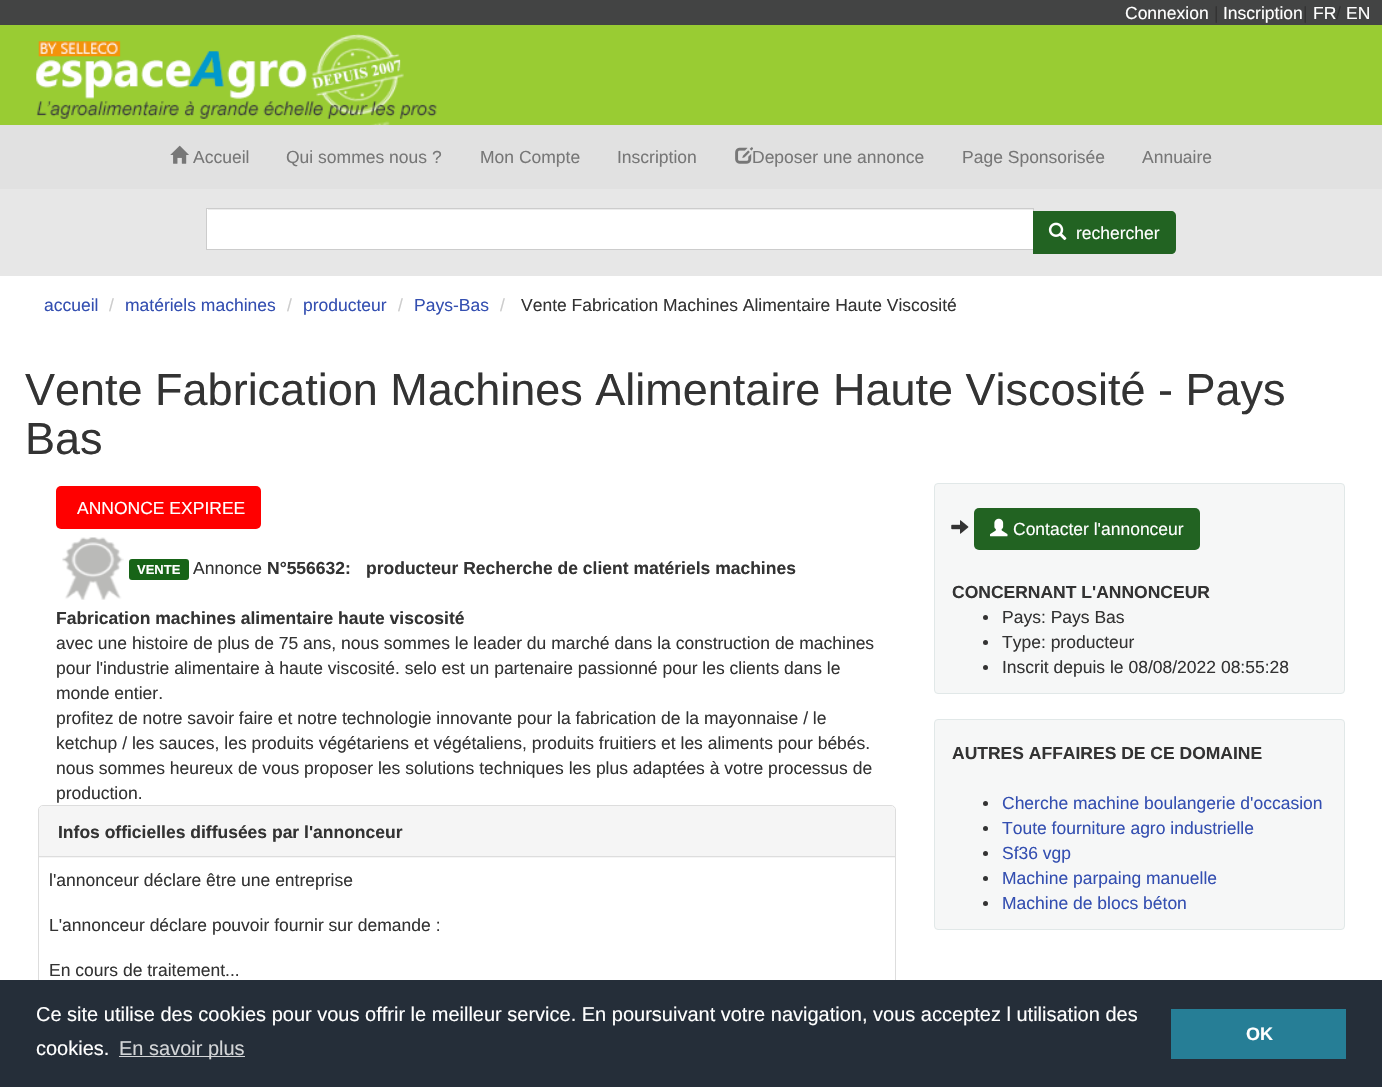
void draw(SkCanvas* canvas) {
	SkPaint fill;
	fill.setAntiAlias(true);
	auto makeFont = [&](const char* family, int weight, float size, bool italic = false) {
		SkFontStyle style(weight, SkFontStyle::kNormal_Width,
			italic ? SkFontStyle::kItalic_Slant : SkFontStyle::kUpright_Slant);
		SkFont result(fontMgr->matchFamilyStyle(family, style), size);
		result.setSubpixel(true);
		return result;
	};
	auto text = [&](const char* s, float x, float y, const SkFont& font) {
		canvas->drawString(s, x, y, font, fill);
	};
	auto box = [&](float l, float t, float r, float b) {
		canvas->drawRect(SkRect::MakeLTRB(l, t, r, b), fill);
	};
	auto roundBox = [&](float l, float t, float r, float b, float radius) {
		canvas->drawRoundRect(SkRect::MakeLTRB(l, t, r, b), radius, radius, fill);
	};
	auto picture = [&](const char* path, float l, float t, float r, float b) {
		auto image = SkImages::DeferredFromEncodedData(SkData::MakeFromFileName(path));
		canvas->drawImageRect(image, SkRect::MakeLTRB(l, t, r, b), SkSamplingOptions());
	};
	canvas->clear(0xFFFFFFFF);
	fill.setColor(0xFF434444);
	box(0, 0, 1382, 25);
	fill.setColor(0xFF99CC33);
	box(0, 25, 1382, 125);
	picture("image0.png", 36, 33, 437, 125);
	fill.setColor(0xFFE1E1E1);
	box(0, 125, 1382, 189);
	picture("image1.png", 170, 145, 189, 164);
	picture("image2.png", 735, 147, 753, 164);
	fill.setColor(0xFFE7E7E7);
	box(0, 189, 1382, 276);
	fill.setColor(0xFFFFFFFF);
	box(207, 209, 1033, 249);
	fill.setColor(0xFFECECEC);
	box(208, 209, 1033, 210);
	fill.setStyle(SkPaint::kStroke_Style);
	fill.setStrokeWidth(1);
	fill.setColor(0xFFCCCCCC);
	canvas->drawRect(SkRect::MakeLTRB(206.5f, 208.5f, 1033.5f, 249.5f), fill);
	fill.setStyle(SkPaint::kFill_Style);
	fill.setColor(0xFF226322);
	canvas->drawPath(SkPathBuilder().moveTo(1033, 211).lineTo(1171, 211).cubicTo(1174, 211, 1176, 213, 1176, 216).lineTo(1176, 249).cubicTo(1176, 252, 1174, 254, 1171, 254).lineTo(1033, 254).close().detach(), fill);
	picture("image3.png", 1048, 222, 1067, 241);
	fill.setColor(0xFFFF0000);
	roundBox(56, 486, 261, 529, 5);
	picture("image4.png", 62, 537, 124, 600);
	fill.setColor(0xFF176417);
	roundBox(129, 559, 189, 580, 3);
	fill.setStyle(SkPaint::kStroke_Style);
	fill.setColor(0xFFDDDDDD);
	canvas->drawRoundRect(SkRect::MakeLTRB(38.5f, 805.5f, 895.5f, 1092.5f), 4.5f, 4.5f, fill);
	fill.setStyle(SkPaint::kFill_Style);
	fill.setColor(0xFFF5F5F5);
	canvas->drawPath(SkPathBuilder().moveTo(43, 806).lineTo(891, 806).cubicTo(893, 806, 895, 808, 895, 810).lineTo(895, 858).lineTo(39, 858).lineTo(39, 810).cubicTo(39, 808, 41, 806, 43, 806).close().detach(), fill);
	fill.setColor(0xFFDDDDDD);
	box(39, 856, 895, 857);
	fill.setColor(0xFFF6F7F7);
	canvas->drawRoundRect(SkRect::MakeLTRB(934.5f, 483.5f, 1344.5f, 693.5f), 3.5f, 3.5f, fill);
	fill.setStyle(SkPaint::kStroke_Style);
	fill.setColor(0xFFE1E8E8);
	canvas->drawRoundRect(SkRect::MakeLTRB(934.5f, 483.5f, 1344.5f, 693.5f), 3.5f, 3.5f, fill);
	picture("image5.png", 951, 520, 969, 534);
	fill.setStyle(SkPaint::kFill_Style);
	fill.setColor(0xFF226322);
	roundBox(974, 508, 1200, 550, 5);
	picture("image6.png", 990, 518, 1008, 537);
	fill.setColor(0xFF333333);
	canvas->drawCircle(985.5f, 617.5f, 2.5f, fill);
	canvas->drawCircle(985.5f, 642.5f, 2.5f, fill);
	canvas->drawCircle(985.5f, 667.5f, 2.5f, fill);
	fill.setColor(0xFFF6F7F7);
	canvas->drawRoundRect(SkRect::MakeLTRB(934.5f, 719.5f, 1344.5f, 929.5f), 3.5f, 3.5f, fill);
	fill.setStyle(SkPaint::kStroke_Style);
	fill.setColor(0xFFE1E8E8);
	canvas->drawRoundRect(SkRect::MakeLTRB(934.5f, 719.5f, 1344.5f, 929.5f), 3.5f, 3.5f, fill);
	fill.setStyle(SkPaint::kFill_Style);
	fill.setColor(0xFF333333);
	canvas->drawCircle(985.5f, 803.5f, 2.5f, fill);
	canvas->drawCircle(985.5f, 828.5f, 2.5f, fill);
	canvas->drawCircle(985.5f, 853.5f, 2.5f, fill);
	canvas->drawCircle(985.5f, 878.5f, 2.5f, fill);
	canvas->drawCircle(985.5f, 903.5f, 2.5f, fill);
	fill.setColor(0xFF252E39);
	box(0, 980, 1382, 1087);
	fill.setColor(0xFFD3D5D7);
	box(119, 1056, 245, 1057);
	fill.setColor(0xFF267E96);
	box(1171, 1009, 1346, 1059);
	auto font1 = makeFont("Liberation Sans", 400, 17.5f);
	fill.setColor(0xFFFFFFFF);
	text("Connexion", 1125, 19, font1);
	fill.setColor(0xFF333333);
	text("|", 1214, 19, font1);
	fill.setColor(0xFFFFFFFF);
	text("Inscription", 1223, 19, font1);
	fill.setColor(0xFF333333);
	text("|", 1303, 19, font1);
	fill.setColor(0xFFFFFFFF);
	text("FR", 1313, 19, font1);
	fill.setColor(0xFF333333);
	text("/", 1336, 19, font1);
	fill.setColor(0xFFFFFFFF);
	text("EN", 1346, 19, font1);
	fill.setColor(0xFF777777);
	text("Accueil", 193, 163, font1);
	text("Qui sommes nous ?", 286, 163, font1);
	text("Mon Compte", 480, 163, font1);
	text("Inscription", 617, 163, font1);
	text("Deposer une annonce", 752, 163, font1);
	text("Page Sponsorisée", 962, 163, font1);
	text("Annuaire", 1142, 163, font1);
	fill.setColor(0xFFFFFFFF);
	text("rechercher", 1076, 239, font1);
	fill.setColor(0xFF344FB1);
	text("accueil", 44, 311, font1);
	fill.setColor(0xFFCCCCCC);
	text("/", 109, 311, font1);
	fill.setColor(0xFF344FB1);
	text("matériels machines", 125, 311, font1);
	fill.setColor(0xFFCCCCCC);
	text("/", 287, 311, font1);
	fill.setColor(0xFF344FB1);
	text("producteur", 303, 311, font1);
	fill.setColor(0xFFCCCCCC);
	text("/", 398, 311, font1);
	fill.setColor(0xFF344FB1);
	text("Pays-Bas", 414, 311, font1);
	fill.setColor(0xFFCCCCCC);
	text("/", 500, 311, font1);
	fill.setColor(0xFF333333);
	text("Vente Fabrication Machines Alimentaire Haute Viscosité", 521, 311, font1);
	auto font2 = makeFont("Liberation Sans", 400, 45);
	text("Vente Fabrication Machines Alimentaire Haute Viscosité - Pays", 25, 405, font2);
	text("Bas", 25, 454, font2);
	fill.setColor(0xFFFFFFFF);
	text("ANNONCE EXPIREE", 77, 514, font1);
	auto font3 = makeFont("Liberation Sans", 700, 13);
	text("VENTE", 137, 574, font3);
	fill.setColor(0xFF333333);
	text("Annonce", 193, 574, font1);
	auto font4 = makeFont("Liberation Sans", 700, 17.5f);
	text("N°556632:", 267, 574, font4);
	text("producteur Recherche de client matériels machines", 366, 574, font4);
	text("Fabrication machines alimentaire haute viscosité", 56, 624, font4);
	text("avec une histoire de plus de 75 ans, nous sommes le leader du marché dans la construction de machines", 56, 649, font1);
	text("pour l'industrie alimentaire à haute viscosité. selo est un partenaire passionné pour les clients dans le", 56, 674, font1);
	text("monde entier.", 56, 699, font1);
	text("profitez de notre savoir faire et notre technologie innovante pour la fabrication de la mayonnaise / le", 56, 724, font1);
	text("ketchup / les sauces, les produits végétariens et végétaliens, produits fruitiers et les aliments pour bébés.", 56, 749, font1);
	text("nous sommes heureux de vous proposer les solutions techniques les plus adaptées à votre processus de", 56, 774, font1);
	text("production.", 56, 799, font1);
	text("Infos officielles diffusées par l'annonceur", 58, 838, font4);
	text("l'annonceur déclare être une entreprise", 49, 886, font1);
	text("L'annonceur déclare pouvoir fournir sur demande :", 49, 931, font1);
	text("En cours de traitement...", 49, 976, font1);
	fill.setColor(0xFFFFFFFF);
	text("Contacter l'annonceur", 1013, 535, font1);
	fill.setColor(0xFF333333);
	text("CONCERNANT L'ANNONCEUR", 952, 598, font4);
	text("Pays: Pays Bas", 1002, 623, font1);
	text("Type: producteur", 1002, 648, font1);
	text("Inscrit depuis le 08/08/2022 08:55:28", 1002, 673, font1);
	text("AUTRES AFFAIRES DE CE DOMAINE", 952, 759, font4);
	fill.setColor(0xFF344FB1);
	text("Cherche machine boulangerie d'occasion", 1002, 809, font1);
	text("Toute fourniture agro industrielle", 1002, 834, font1);
	text("Sf36 vgp", 1002, 859, font1);
	text("Machine parpaing manuelle", 1002, 884, font1);
	text("Machine de blocs béton", 1002, 909, font1);
	auto font5 = makeFont("Liberation Sans", 400, 20);
	fill.setColor(0xFFFFFFFF);
	text("Ce site utilise des cookies pour vous offrir le meilleur service. En poursuivant votre navigation, vous acceptez l utilisation des", 36, 1021, font5);
	text("cookies.", 36, 1055, font5);
	fill.setColor(0xFFD3D5D7);
	text("En savoir plus", 119, 1055, font5);
	auto font6 = makeFont("Liberation Sans", 700, 18);
	fill.setColor(0xFFFFFFFF);
	text("OK", 1246, 1040, font6);
}
